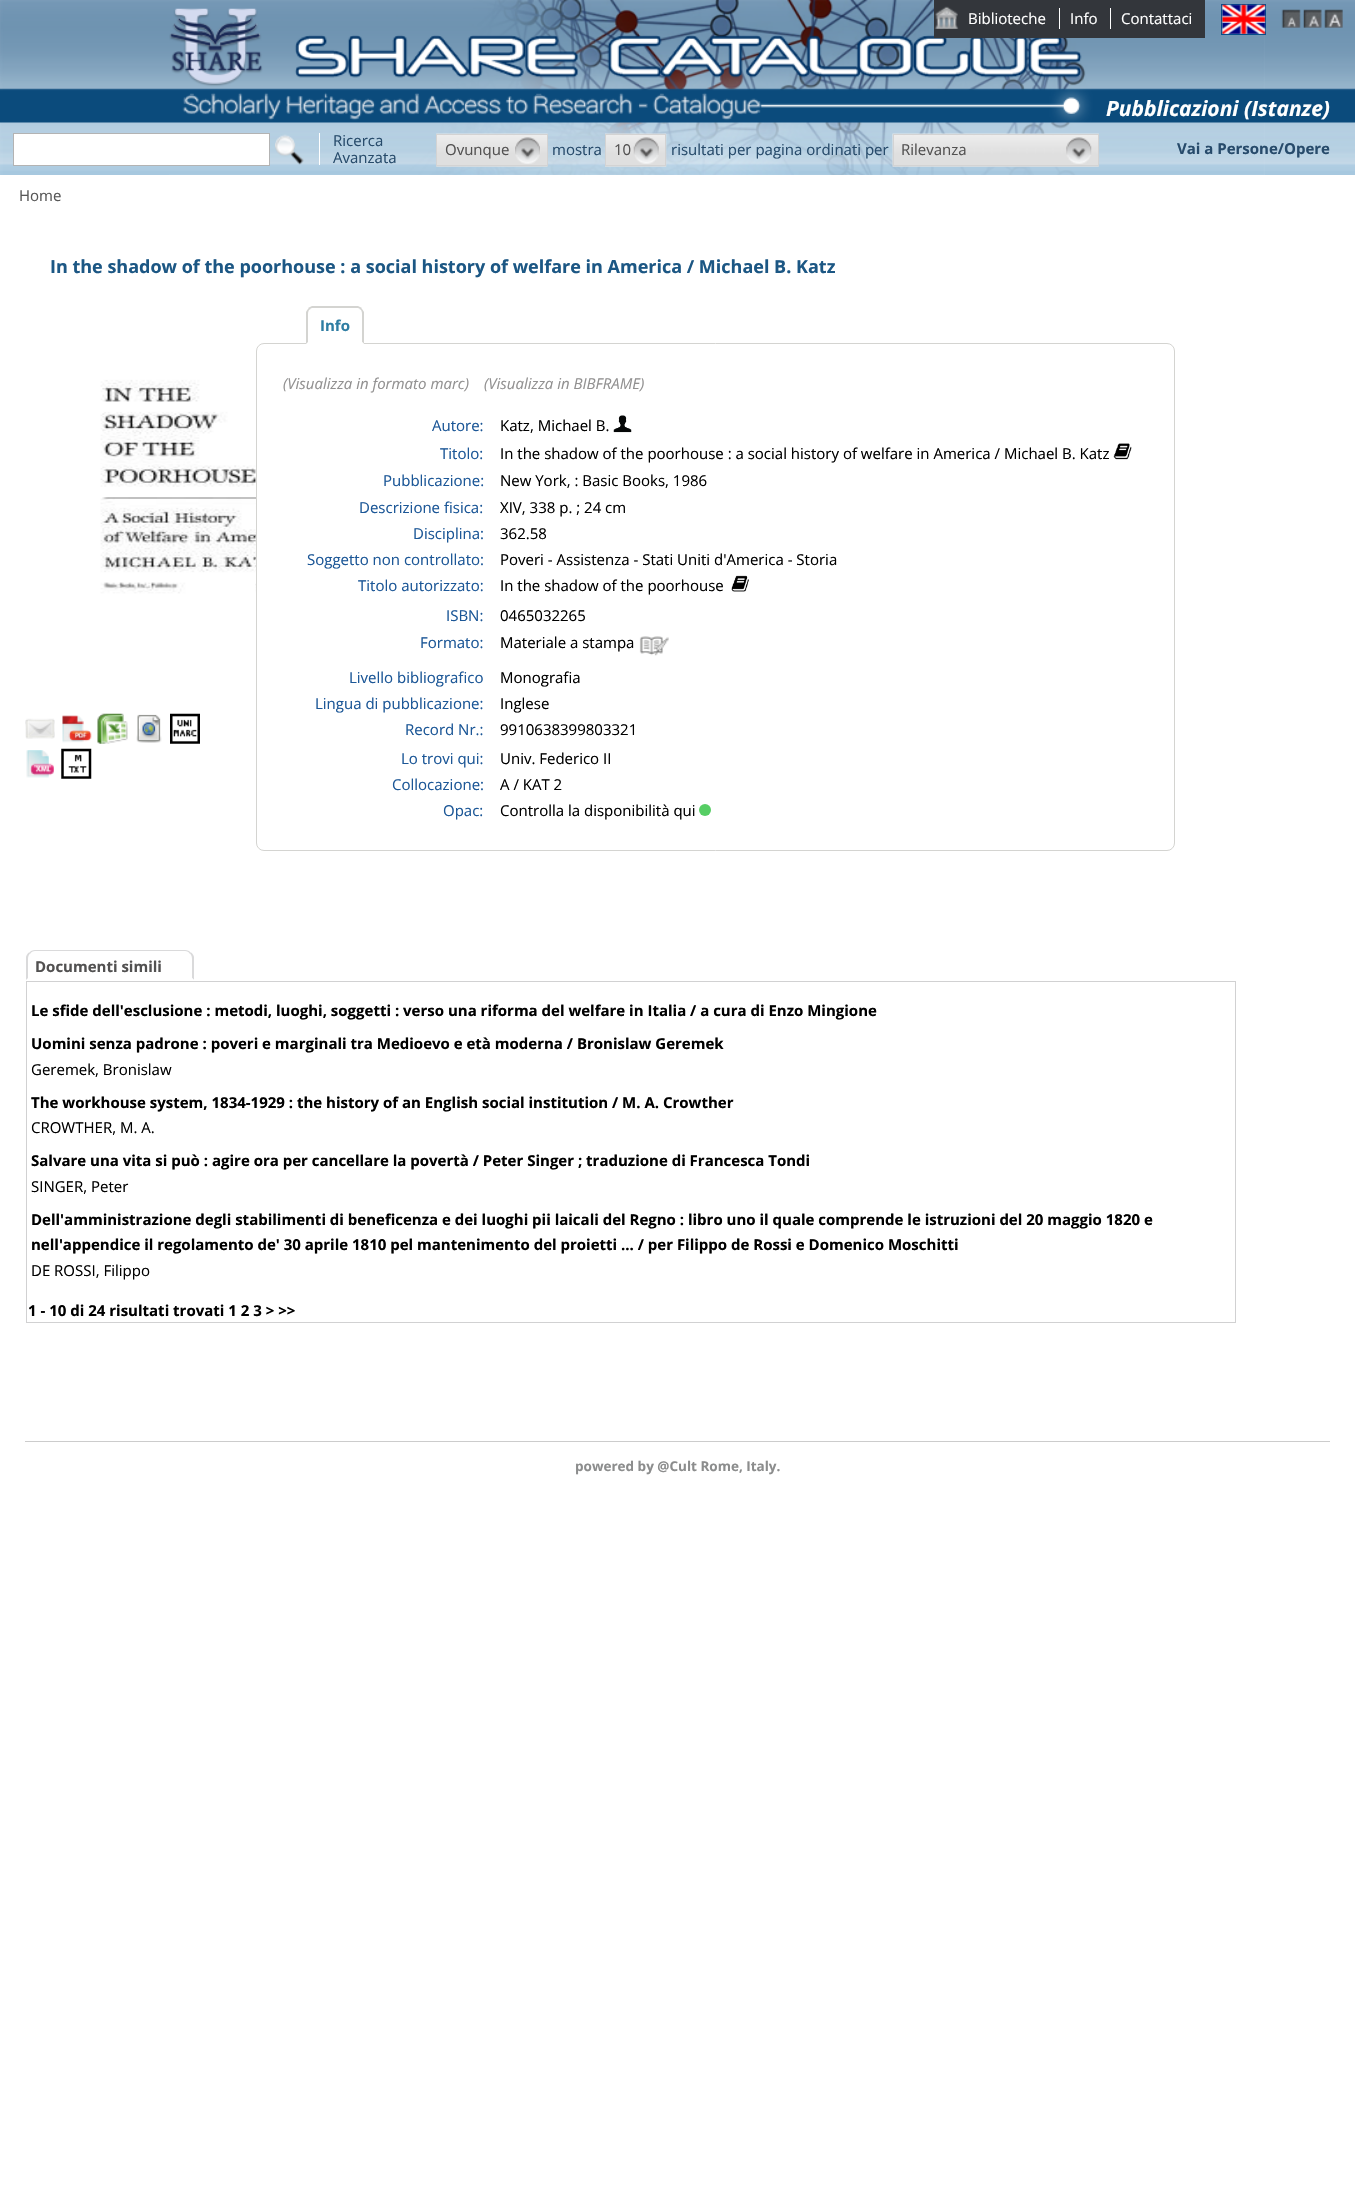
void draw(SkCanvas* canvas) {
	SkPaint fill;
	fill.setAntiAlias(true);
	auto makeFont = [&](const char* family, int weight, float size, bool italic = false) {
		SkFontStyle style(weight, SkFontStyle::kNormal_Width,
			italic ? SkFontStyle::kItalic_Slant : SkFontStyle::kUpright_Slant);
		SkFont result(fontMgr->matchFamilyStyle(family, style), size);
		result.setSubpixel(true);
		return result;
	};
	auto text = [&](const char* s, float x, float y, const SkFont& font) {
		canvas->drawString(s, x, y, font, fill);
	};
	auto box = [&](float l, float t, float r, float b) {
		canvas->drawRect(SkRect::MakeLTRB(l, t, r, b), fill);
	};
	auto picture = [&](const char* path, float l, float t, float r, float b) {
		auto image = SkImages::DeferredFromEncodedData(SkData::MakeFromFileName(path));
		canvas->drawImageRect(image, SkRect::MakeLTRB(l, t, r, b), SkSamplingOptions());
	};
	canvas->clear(0xFFFFFFFF);
	picture("image0.png", 0, 0, 1355, 175);
	picture("image1.png", 169, 0, 1265, 175);
	fill.setColor(0xFF33363B);
	box(934, 0, 1205, 38);
	picture("image2.png", 934, 6, 959, 29);
	fill.setColor(0xFFFFFFFF);
	box(1059, 8, 1060, 29);
	box(1110, 8, 1111, 29);
	fill.setStyle(SkPaint::kStroke_Style);
	fill.setStrokeWidth(1);
	fill.setColor(0xFF074E8B);
	canvas->drawRect(SkRect::MakeLTRB(1221.5f, 4.5f, 1265.5f, 34.5f), fill);
	picture("image3.png", 1221, 4, 1266, 34);
	picture("image4.png", 1281, 9, 1301, 28);
	picture("image5.png", 1303, 9, 1322, 28);
	picture("image6.png", 1324, 9, 1343, 28);
	fill.setStyle(SkPaint::kFill_Style);
	fill.setColor(0xFFFFFFFF);
	canvas->drawRect(SkRect::MakeLTRB(13.5f, 133.5f, 269.5f, 165.5f), fill);
	fill.setStyle(SkPaint::kStroke_Style);
	fill.setColor(0xFFB3B3B3);
	canvas->drawRect(SkRect::MakeLTRB(13.5f, 133.5f, 269.5f, 165.5f), fill);
	picture("image7.png", 275, 134, 304, 165);
	fill.setStyle(SkPaint::kFill_Style);
	fill.setColor(0xFFFFFFFF);
	box(319, 133, 320, 165);
	picture("image8.png", 436, 133, 548, 167);
	fill.setStyle(SkPaint::kStroke_Style);
	fill.setColor(0xFFD3D3D3);
	canvas->drawRect(SkRect::MakeLTRB(436.5f, 134.5f, 547.5f, 165.5f), fill);
	picture("image9.png", 515, 137, 540, 164);
	picture("image10.png", 605, 133, 667, 167);
	canvas->drawRect(SkRect::MakeLTRB(605.5f, 134.5f, 665.5f, 165.5f), fill);
	picture("image11.png", 633, 137, 659, 164);
	picture("image12.png", 892, 133, 1099, 167);
	canvas->drawRect(SkRect::MakeLTRB(893.5f, 134.5f, 1098.5f, 165.5f), fill);
	picture("image13.png", 1066, 137, 1092, 164);
	picture("image14.png", 100, 358, 256, 594);
	picture("image15.png", 25, 718, 55, 739);
	picture("image16.png", 62, 715, 92, 743);
	picture("image17.png", 97, 713, 128, 744);
	picture("image18.png", 136, 714, 162, 743);
	picture("image19.png", 170, 713, 200, 744);
	picture("image20.png", 26, 750, 54, 778);
	picture("image21.png", 61, 748, 92, 779);
	fill.setColor(0xFFD4D4D1);
	canvas->drawRoundRect(SkRect::MakeLTRB(256.5f, 343.5f, 1174.5f, 850.5f), 7.5f, 7.5f, fill);
	fill.setStyle(SkPaint::kFill_Style);
	fill.setColor(0xFFFFFFFF);
	canvas->drawPath(SkPathBuilder().moveTo(314, 306).lineTo(356, 306).cubicTo(360.5f, 306, 364, 309.5f, 364, 314).lineTo(364, 344).lineTo(306, 344).lineTo(306, 314).cubicTo(306, 309.5f, 309.5f, 306, 314, 306).close().detach(), fill);
	fill.setColor(0xFFD4D4D1);
	canvas->drawPath(SkPathBuilder().moveTo(314, 308).cubicTo(312, 308, 310, 308, 310, 310).lineTo(308, 308).lineTo(312, 306).lineTo(358, 306).lineTo(362, 308).lineTo(360, 310).cubicTo(360, 308, 358, 308, 356, 308).close().detach(), fill);
	canvas->drawPath(SkPathBuilder().moveTo(361.5f, 308.5f).cubicTo(362.5f, 309.5f, 363.5f, 311, 364, 312).lineTo(364, 344).lineTo(362, 342).lineTo(362, 314).cubicTo(362, 312, 361.5f, 310.5f, 360.5f, 309.5f).close().detach(), fill);
	fill.setColor(0xFFFFFFFF);
	canvas->drawPath(SkPathBuilder().moveTo(364, 344).lineTo(362, 342).lineTo(308, 342).lineTo(306, 344).close().detach(), fill);
	fill.setColor(0xFFD4D4D1);
	canvas->drawPath(SkPathBuilder().moveTo(306, 344).lineTo(306, 312).cubicTo(306.5f, 311, 307.5f, 309.5f, 308.5f, 308.5f).lineTo(309.5f, 309.5f).cubicTo(308.5f, 310.5f, 308, 312, 308, 314).lineTo(308, 342).close().detach(), fill);
	picture("image22.png", 613, 415, 632, 433);
	picture("image23.png", 1113, 443, 1132, 460);
	picture("image24.png", 731, 575, 749, 592);
	picture("image25.png", 639, 636, 669, 656);
	fill.setColor(0xFF56CE64);
	canvas->drawCircle(705, 810, 6, fill);
	fill.setColor(0xFFDADADB);
	canvas->drawPath(SkPathBuilder().moveTo(35, 950).cubicTo(33, 950, 30, 951, 29, 953).lineTo(30, 954).cubicTo(31, 952, 33, 951, 35, 951).lineTo(185, 951).cubicTo(187, 951, 189, 952, 190, 954).lineTo(191, 953).cubicTo(190, 951, 187, 950, 185, 950).close().detach(), fill);
	canvas->drawPath(SkPathBuilder().moveTo(194, 957).lineTo(194, 980).lineTo(192, 978).lineTo(192, 959).cubicTo(192, 957, 191.5f, 955, 190, 953.5f).lineTo(191, 952.5f).cubicTo(192.5f, 953.5f, 193.5f, 955, 194, 957).close().detach(), fill);
	fill.setColor(0xFFFFFFFF);
	canvas->drawPath(SkPathBuilder().moveTo(194, 980).lineTo(192, 978).lineTo(192, 979).lineTo(28, 979).lineTo(28, 978).lineTo(26, 980).close().detach(), fill);
	fill.setColor(0xFFDADADB);
	canvas->drawPath(SkPathBuilder().moveTo(26, 980).lineTo(26, 957).cubicTo(26.5f, 955, 27.5f, 953.5f, 29, 952.5f).lineTo(30, 953.5f).cubicTo(28.5f, 955, 28, 957, 28, 959).lineTo(28, 978).close().detach(), fill);
	fill.setStyle(SkPaint::kStroke_Style);
	fill.setColor(0xFFD1D1D2);
	canvas->drawRect(SkRect::MakeLTRB(26.5f, 981.5f, 1235.5f, 1322.5f), fill);
	fill.setStyle(SkPaint::kFill_Style);
	fill.setColor(0xFFCCCCCC);
	box(25, 1441, 1330, 1442);
	auto font1 = makeFont("Open Sans", 400, 15);
	fill.setColor(0xFFFFFFFF);
	text("Biblioteche", 968, 24, font1);
	text("Info", 1070, 24, font1);
	text("Contattaci", 1121, 24, font1);
	auto font2 = makeFont("Open Sans", 700, 21, true);
	text("Pubblicazioni (Istanze)", 1106, 116, font2);
	fill.setColor(0xFF274B6B);
	text("Ricerca", 333, 146, font1);
	text("Avanzata", 333, 163, font1);
	fill.setColor(0xFF525151);
	text("Ovunque", 445, 155, font1);
	fill.setColor(0xFF274B6B);
	text("mostra", 552, 155, font1);
	fill.setColor(0xFF525151);
	text("10", 614, 155, font1);
	fill.setColor(0xFF274B6B);
	text("risultati per pagina ordinati per", 671, 155, font1);
	fill.setColor(0xFF525151);
	text("Rilevanza", 901, 155, font1);
	auto font3 = makeFont("Open Sans", 700, 15);
	fill.setColor(0xFF274B6B);
	text("Vai a Persone/Opere", 1177, 154, font3);
	fill.setColor(0xFF575757);
	text("Home", 19, 201, font1);
	auto font4 = makeFont("Open Sans", 700, 18);
	fill.setColor(0xFF1C5784);
	text("In the shadow of the poorhouse : a social history of welfare in America / Michael B. Katz", 50, 273, font4);
	fill.setColor(0xFF2E7DA3);
	text("Info", 320, 331, font3);
	auto font5 = makeFont("Open Sans", 400, 15, true);
	fill.setColor(0xFF929191);
	text("(Visualizza in formato marc)", 283, 389, font5);
	text("(Visualizza in BIBFRAME)", 484, 389, font5);
	fill.setColor(0xFF1C5797);
	text("Autore:", 432, 431, font1);
	fill.setColor(0xFF000000);
	text("Katz, Michael B.", 500, 431, font1);
	fill.setColor(0xFF1C5797);
	text("Titolo:", 440, 459, font1);
	fill.setColor(0xFF000000);
	text("In the shadow of the poorhouse : a social history of welfare in America / Michael B. Katz", 500, 459, font1);
	fill.setColor(0xFF1C5797);
	text("Pubblicazione:", 383, 486, font1);
	fill.setColor(0xFF000000);
	text("New York, : Basic Books, 1986", 500, 486, font1);
	fill.setColor(0xFF1C5797);
	text("Descrizione fisica:", 359, 513, font1);
	fill.setColor(0xFF000000);
	text("XIV, 338 p. ; 24 cm", 500, 513, font1);
	fill.setColor(0xFF1C5797);
	text("Disciplina:", 413, 539, font1);
	fill.setColor(0xFF000000);
	text("362.58", 500, 539, font1);
	fill.setColor(0xFF1C5797);
	text("Soggetto non controllato:", 307, 565, font1);
	fill.setColor(0xFF000000);
	text("Poveri - Assistenza - Stati Uniti d'America - Storia", 500, 565, font1);
	fill.setColor(0xFF1C5797);
	text("Titolo autorizzato:", 358, 591, font1);
	fill.setColor(0xFF000000);
	text("In the shadow of the poorhouse", 500, 591, font1);
	fill.setColor(0xFF1C5797);
	text("ISBN:", 446, 621, font1);
	fill.setColor(0xFF000000);
	text("0465032265", 500, 621, font1);
	fill.setColor(0xFF1C5797);
	text("Formato:", 420, 648, font1);
	fill.setColor(0xFF000000);
	text("Materiale a stampa", 500, 648, font1);
	fill.setColor(0xFF1C5797);
	text("Livello bibliografico", 349, 683, font1);
	fill.setColor(0xFF000000);
	text("Monografia", 500, 683, font1);
	fill.setColor(0xFF1C5797);
	text("Lingua di pubblicazione:", 315, 709, font1);
	fill.setColor(0xFF000000);
	text("Inglese", 500, 709, font1);
	fill.setColor(0xFF1C5797);
	text("Record Nr.:", 405, 735, font1);
	fill.setColor(0xFF000000);
	text("9910638399803321", 500, 735, font1);
	fill.setColor(0xFF1C5797);
	text("Lo trovi qui:", 401, 764, font1);
	fill.setColor(0xFF000000);
	text("Univ. Federico II", 500, 764, font1);
	fill.setColor(0xFF1C5797);
	text("Collocazione:", 392, 790, font1);
	fill.setColor(0xFF000000);
	text("A / KAT 2", 500, 790, font1);
	fill.setColor(0xFF1C5797);
	text("Opac:", 443, 816, font1);
	fill.setColor(0xFF000000);
	text("Controlla la disponibilità qui", 500, 816, font1);
	fill.setColor(0xFF525151);
	text("Documenti simili", 35, 972, font3);
	fill.setColor(0xFF000000);
	text("Le sfide dell'esclusione : metodi, luoghi, soggetti : verso una riforma del welfare in Italia / a cura di Enzo Mingione", 31, 1016, font3);
	text("Uomini senza padrone : poveri e marginali tra Medioevo e età moderna / Bronislaw Geremek", 31, 1049, font3);
	text("Geremek, Bronislaw", 31, 1075, font1);
	text("The workhouse system, 1834-1929 : the history of an English social institution / M. A. Crowther", 31, 1108, font3);
	text("CROWTHER, M. A.", 31, 1133, font1);
	text("Salvare una vita si può : agire ora per cancellare la povertà / Peter Singer ; traduzione di Francesca Tondi", 31, 1166, font3);
	text("SINGER, Peter", 31, 1192, font1);
	text("Dell'amministrazione degli stabilimenti di beneficenza e dei luoghi pii laicali del Regno : libro uno il quale comprende le istruzioni del 20 maggio 1820 e", 31, 1225, font3);
	text("nell'appendice il regolamento de' 30 aprile 1810 pel mantenimento del proietti ... / per Filippo de Rossi e Domenico Moschitti", 31, 1250, font3);
	text("DE ROSSI, Filippo", 31, 1276, font1);
	text("1 - 10 di 24 risultati trovati 1 2 3 > >>", 28, 1316, font3);
	auto font6 = makeFont("Open Sans", 700, 13.5f);
	fill.setColor(0xFF8C8D8D);
	text("powered by @Cult Rome, Italy.", 575, 1471, font6);
}
